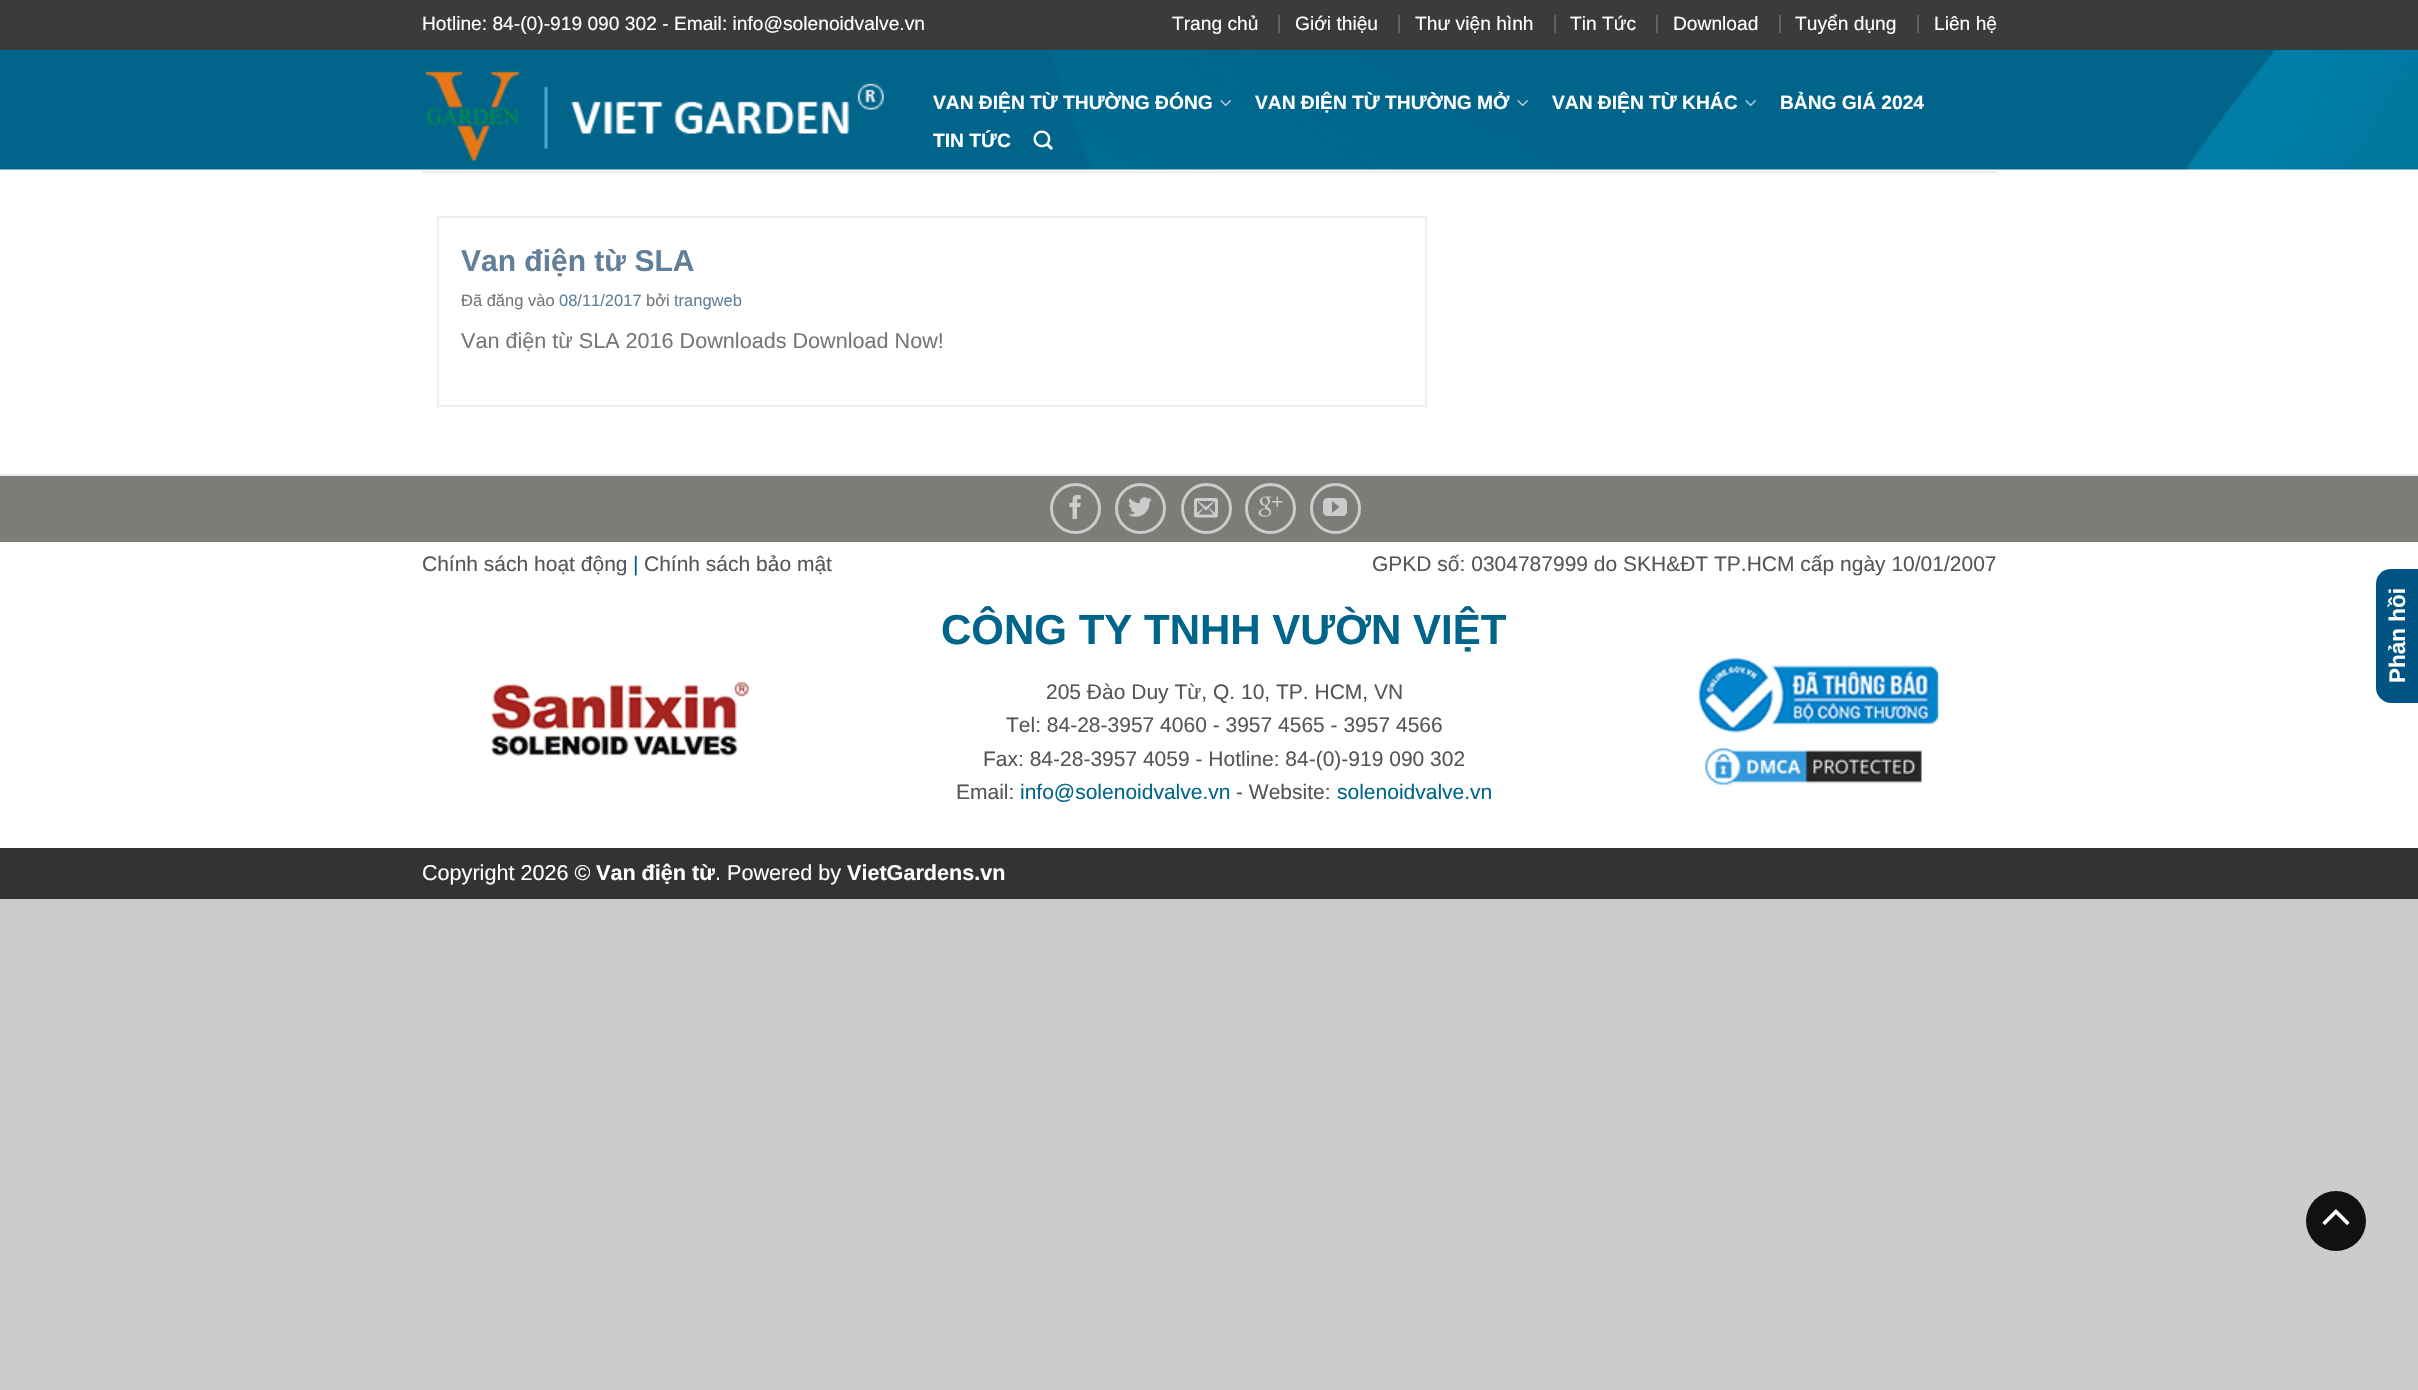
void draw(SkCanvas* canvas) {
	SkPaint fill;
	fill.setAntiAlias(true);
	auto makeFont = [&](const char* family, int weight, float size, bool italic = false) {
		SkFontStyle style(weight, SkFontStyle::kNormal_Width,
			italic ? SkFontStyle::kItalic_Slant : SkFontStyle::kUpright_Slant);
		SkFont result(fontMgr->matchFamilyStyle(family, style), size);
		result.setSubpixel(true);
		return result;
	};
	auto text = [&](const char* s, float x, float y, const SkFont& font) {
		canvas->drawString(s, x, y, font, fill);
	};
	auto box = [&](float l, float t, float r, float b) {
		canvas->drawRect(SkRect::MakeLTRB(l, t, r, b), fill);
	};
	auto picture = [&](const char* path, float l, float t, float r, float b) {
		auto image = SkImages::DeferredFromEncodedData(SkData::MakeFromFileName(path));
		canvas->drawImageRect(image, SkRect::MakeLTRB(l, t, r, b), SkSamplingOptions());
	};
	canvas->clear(0xFFCCCCCC);
	fill.setColor(0xFFFFFFFF);
	box(0, 169, 2418, 474);
	fill.setColor(0xFF3B3B3B);
	box(0, 0, 2418, 50);
	fill.setColor(0xFF626262);
	box(1278, 15, 1280, 33);
	box(1398, 15, 1400, 33);
	box(1554, 15, 1556, 33);
	box(1656, 15, 1658, 33);
	box(1779, 15, 1781, 33);
	box(1917, 15, 1919, 33);
	picture("image0.png", 0, 50, 2418, 170);
	picture("image1.png", 425, 71, 884, 161);
	picture("image2.png", 1220, 100, 1231, 107);
	picture("image3.png", 1517, 100, 1528, 107);
	picture("image3.png", 1745, 100, 1756, 107);
	picture("image4.png", 1033, 130, 1053, 150);
	fill.setColor(0xFFEEEEEE);
	box(422, 171, 1997, 173);
	box(437, 216, 1427, 218);
	box(1425, 218, 1427, 407);
	box(437, 405, 1427, 407);
	box(437, 218, 439, 407);
	fill.setColor(0xFF7E7C79);
	box(0, 476, 2418, 542);
	fill.setColor(0xFFEEEEEE);
	box(0, 474, 2418, 476);
	fill.setStyle(SkPaint::kStroke_Style);
	fill.setStrokeWidth(3);
	fill.setColor(0xFFCCCCCC);
	canvas->drawCircle(1075.5f, 508.5f, 24, fill);
	picture("image5.png", 1069, 495, 1081, 519);
	canvas->drawCircle(1140.5f, 508.5f, 24, fill);
	picture("image6.png", 1128, 497, 1152, 517);
	canvas->drawCircle(1206.5f, 508.5f, 24, fill);
	picture("image7.png", 1194, 498, 1218, 518);
	canvas->drawCircle(1270.5f, 508.5f, 24, fill);
	picture("image8.png", 1258, 496, 1283, 517);
	canvas->drawCircle(1335.5f, 508.5f, 24, fill);
	picture("image9.png", 1323, 498, 1347, 516);
	fill.setStyle(SkPaint::kFill_Style);
	fill.setColor(0xFFFFFFFF);
	box(0, 542, 2418, 848);
	picture("image10.png", 490, 678, 750, 757);
	picture("image11.png", 1698, 657, 1939, 734);
	picture("image12.png", 1705, 748, 1922, 785);
	fill.setColor(0xFF333333);
	box(0, 848, 2418, 899);
	fill.setColor(0xFF005483);
	canvas->drawPath(SkPathBuilder().moveTo(2376, 688).lineTo(2376, 584).cubicTo(2376, 575, 2383, 569, 2391, 569).lineTo(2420, 569).lineTo(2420, 703).lineTo(2391, 703).cubicTo(2383, 703, 2376, 696, 2376, 688).close().detach(), fill);
	fill.setColor(0xFF111111);
	canvas->drawCircle(2336, 1221, 30, fill);
	picture("image13.png", 2322, 1209, 2350, 1225);
	auto font1 = makeFont("Liberation Sans", 400, 19.2f);
	fill.setColor(0xFFFFFFFF);
	text("Hotline: 84-(0)-919 090 302 - Email: info@solenoidvalve.vn", 422, 30, font1);
	text("Trang chủ", 1172, 30, font1);
	text("Giới thiệu", 1295, 30, font1);
	text("Thư viện hình", 1415, 30, font1);
	text("Tin Tức", 1570, 30, font1);
	text("Download", 1673, 30, font1);
	text("Tuyển dụng", 1795, 30, font1);
	text("Liên hệ", 1934, 30, font1);
	auto font2 = makeFont("Liberation Sans", 700, 19.2f);
	text("VAN ĐIỆN TỪ THƯỜNG ĐÓNG", 933, 109, font2);
	text("VAN ĐIỆN TỪ THƯỜNG MỞ", 1255, 109, font2);
	text("VAN ĐIỆN TỪ KHÁC", 1552, 109, font2);
	text("BẢNG GIÁ 2024", 1780, 109, font2);
	text("TIN TỨC", 933, 147, font2);
	auto font3 = makeFont("Liberation Sans", 700, 30);
	fill.setColor(0xFF627F9A);
	text("Van điện từ SLA", 461, 271, font3);
	auto font4 = makeFont("Liberation Sans", 400, 16.5f);
	fill.setColor(0xFF777777);
	text("Đã đăng vào", 461, 306, font4);
	fill.setColor(0xFF627F9A);
	text("08/11/2017", 559, 306, font4);
	fill.setColor(0xFF777777);
	text("bởi", 646, 306, font4);
	fill.setColor(0xFF627F9A);
	text("trangweb", 674, 306, font4);
	auto font5 = makeFont("Liberation Sans", 400, 21.6f);
	fill.setColor(0xFF777777);
	text("Van điện từ SLA 2016 Downloads Download Now!", 461, 348, font5);
	auto font6 = makeFont("Liberation Sans", 400, 21);
	fill.setColor(0xFF565656);
	text("Chính sách hoạt động", 422, 571, font6);
	fill.setColor(0xFF01648B);
	text("|", 633, 571, font6);
	fill.setColor(0xFF565656);
	text("Chính sách bảo mật", 644, 571, font6);
	text("GPKD số: 0304787999 do SKH&ĐT TP.HCM cấp ngày 10/01/2007", 1372, 571, font6);
	auto font7 = makeFont("Liberation Sans", 700, 42);
	fill.setColor(0xFF01648B);
	text("CÔNG TY TNHH VƯỜN VIỆT", 941, 644, font7);
	fill.setColor(0xFF565656);
	text("205 Đào Duy Từ, Q. 10, TP. HCM, VN", 1046, 699, font6);
	text("Tel: 84-28-3957 4060 - 3957 4565 - 3957 4566", 1006, 732, font6);
	text("Fax: 84-28-3957 4059 - Hotline: 84-(0)-919 090 302", 983, 766, font6);
	text("Email:", 956, 799, font6);
	fill.setColor(0xFF01648B);
	text("info@solenoidvalve.vn", 1020, 799, font6);
	fill.setColor(0xFF565656);
	text("- Website:", 1236, 799, font6);
	fill.setColor(0xFF01648B);
	text("solenoidvalve.vn", 1337, 799, font6);
	fill.setColor(0xFFFFFFFF);
	text("Copyright 2026 ©", 422, 880, font5);
	auto font8 = makeFont("Liberation Sans", 700, 21.6f);
	text("Van điện từ", 596, 880, font8);
	text(". Powered by", 715, 880, font5);
	text("VietGardens.vn", 847, 880, font8);
	auto font9 = makeFont("Liberation Sans", 700, 22.5f);
	canvas->save();
	canvas->rotate(-90, 2405, 683);
	text("Phản hồi", 2405, 683, font9);
	canvas->restore();
}
